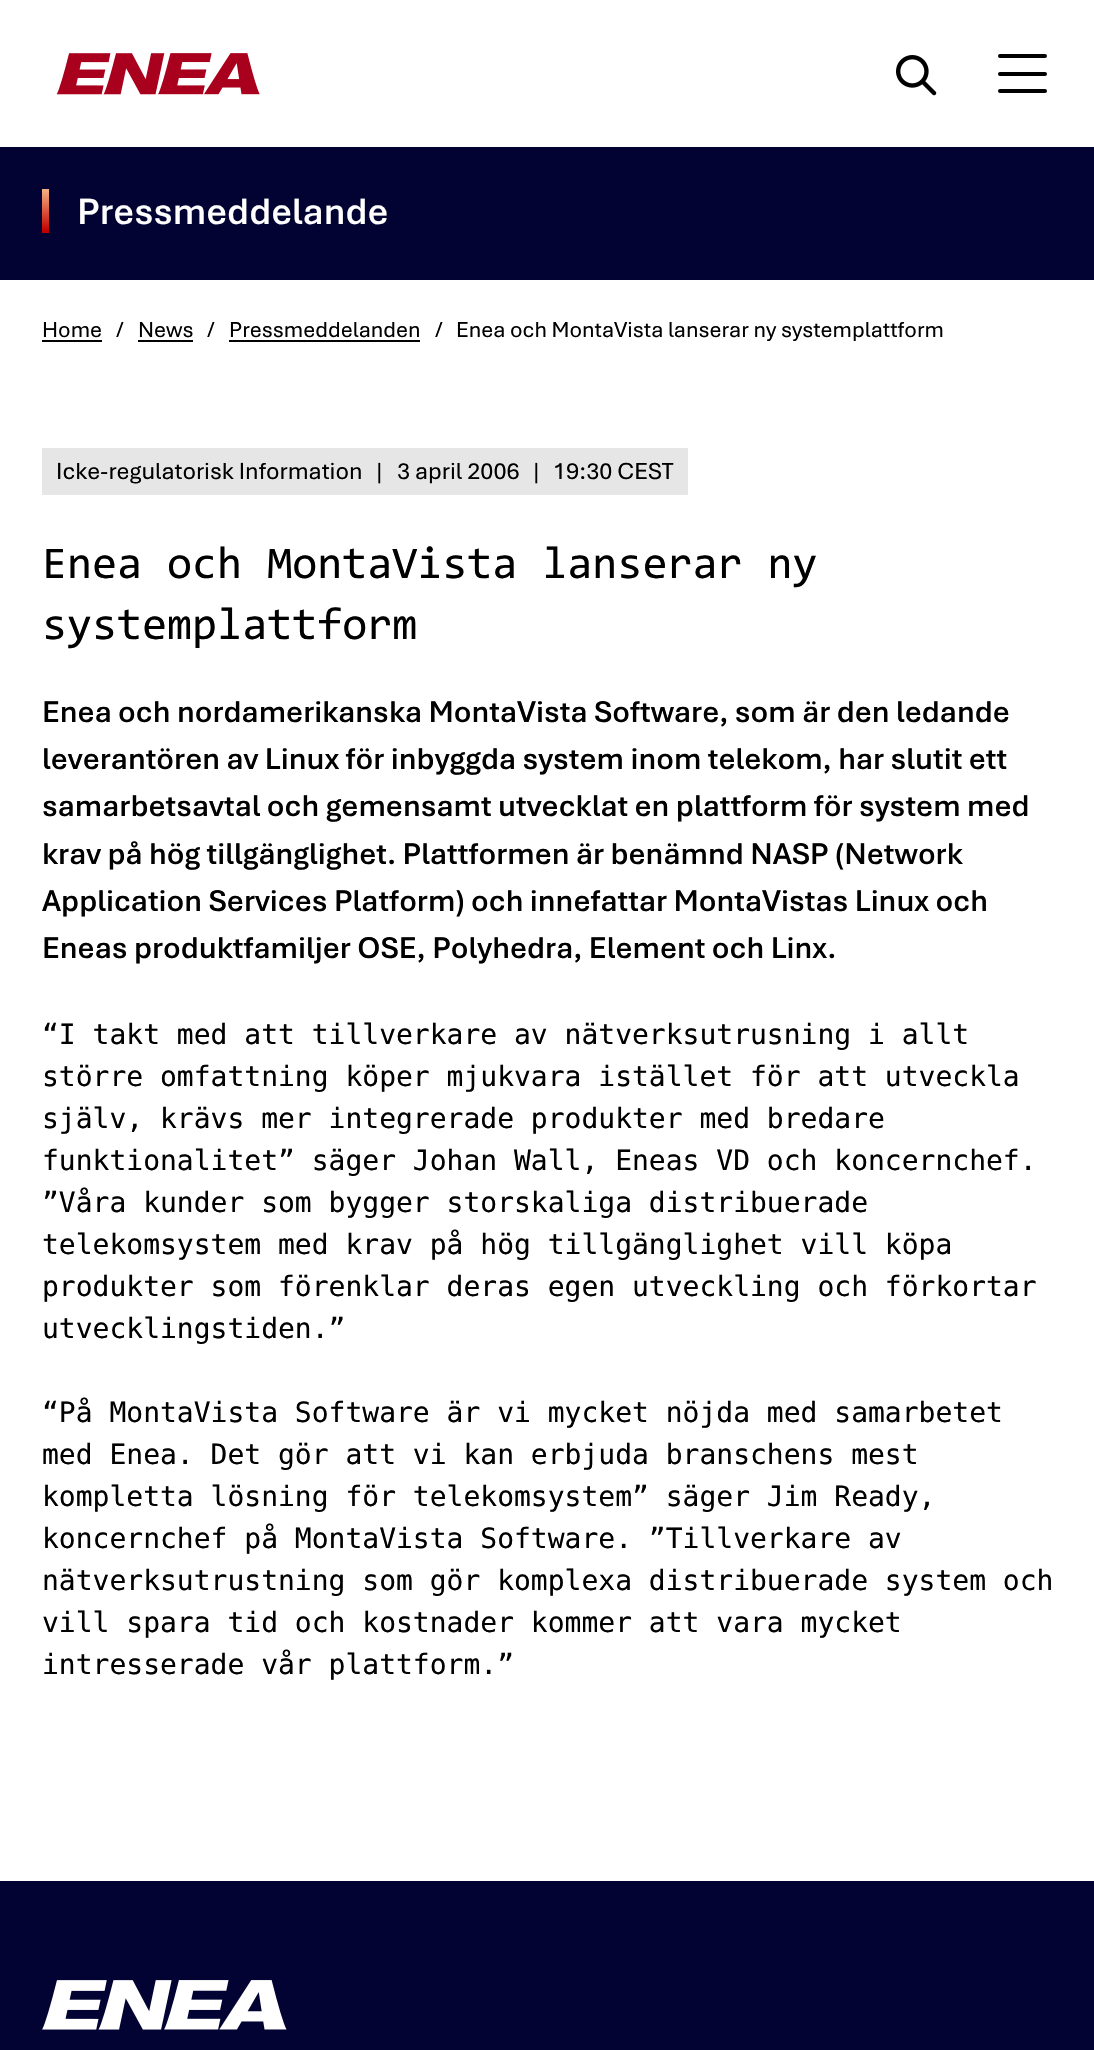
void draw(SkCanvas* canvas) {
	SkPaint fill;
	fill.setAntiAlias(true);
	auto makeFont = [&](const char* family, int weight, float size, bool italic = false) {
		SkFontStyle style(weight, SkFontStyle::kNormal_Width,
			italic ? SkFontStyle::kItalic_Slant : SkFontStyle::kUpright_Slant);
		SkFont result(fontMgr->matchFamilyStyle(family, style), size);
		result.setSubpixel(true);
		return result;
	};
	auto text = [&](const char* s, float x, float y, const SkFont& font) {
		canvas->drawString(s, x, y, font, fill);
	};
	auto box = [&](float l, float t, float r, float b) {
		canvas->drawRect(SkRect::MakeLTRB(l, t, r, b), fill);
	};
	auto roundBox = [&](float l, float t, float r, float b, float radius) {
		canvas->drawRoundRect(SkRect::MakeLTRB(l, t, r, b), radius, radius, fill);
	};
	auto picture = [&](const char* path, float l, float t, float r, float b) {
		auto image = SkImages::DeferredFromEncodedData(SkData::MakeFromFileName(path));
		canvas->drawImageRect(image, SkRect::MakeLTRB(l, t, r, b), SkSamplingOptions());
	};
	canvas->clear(0xFFFFFFFF);
	picture("image0.png", 56, 53, 260, 95);
	picture("image1.png", 896, 55, 937, 96);
	fill.setColor(0xFF000000);
	roundBox(998, 72, 1047, 76, 2);
	roundBox(998, 54, 1047, 58, 2);
	roundBox(998, 89, 1047, 93, 2);
	fill.setColor(0xFF020332);
	box(0, 147, 1094, 280);
	{
		const SkColor colors[] = {0xFFF5AB7D, 0xFFC00000};
		const float stops[] = {0.05f, 0.95f};
		const SkPoint ends[] = {{46, 189}, {46, 233}};
		fill.setShader(SkGradientShader::MakeLinear(ends, colors, stops, 2, SkTileMode::kClamp));
		fill.setAlpha(255);
	}
	box(42, 189, 49, 233);
	fill.setShader(nullptr);
	fill.setColor(0xFF000000);
	box(42, 340, 102, 342);
	box(138, 340, 193, 342);
	box(229, 340, 420, 342);
	fill.setColor(0xFFE6E6E6);
	box(42, 448, 688, 495);
	fill.setColor(0xFF020332);
	box(0, 1881, 1094, 2050);
	picture("image2.png", 42, 1980, 287, 2030);
	auto font1 = makeFont("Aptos", 600, 38.5f);
	fill.setColor(0xFFFFFFFF);
	text("Pressmeddelande", 77, 224, font1);
	auto font2 = makeFont("Aptos", 400, 22.75f);
	fill.setColor(0xFF000000);
	text("Home", 42, 337, font2);
	text("/", 116, 337, font2);
	text("News", 138, 337, font2);
	text("/", 207, 337, font2);
	text("Pressmeddelanden", 229, 337, font2);
	text("/", 435, 337, font2);
	text("Enea och MontaVista lanserar ny systemplattform", 456, 337, font2);
	auto font3 = makeFont("Aptos", 400, 24.5f);
	text("Icke-regulatorisk Information", 56, 479, font3);
	text("|", 376, 479, font3);
	text("3 april 2006", 397, 479, font3);
	text("|", 533, 479, font3);
	text("19:30 CEST", 553, 479, font3);
	auto font4 = makeFont("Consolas", 400, 45.5f);
	text("Enea och MontaVista lanserar ny", 42, 578, font4);
	text("systemplattform", 42, 639, font4);
	auto font5 = makeFont("Aptos", 600, 31.5f);
	text("Enea och nordamerikanska MontaVista Software, som är den ledande", 42, 722, font5);
	text("leverantören av Linux för inbyggda system inom telekom, har slutit ett", 42, 769, font5);
	text("samarbetsavtal och gemensamt utvecklat en plattform för system med", 42, 816, font5);
	text("krav på hög tillgänglighet. Plattformen är benämnd NASP (Network", 42, 864, font5);
	text("Application Services Platform) och innefattar MontaVistas Linux och", 42, 911, font5);
	text("Eneas produktfamiljer OSE, Polyhedra, Element och Linx.", 42, 958, font5);
	auto font6 = makeFont("DejaVu Sans Mono", 400, 28);
	text("“I takt med att tillverkare av nätverksutrusning i allt", 42, 1044, font6);
	text("större omfattning köper mjukvara istället för att utveckla", 42, 1086, font6);
	text("själv, krävs mer integrerade produkter med bredare", 42, 1128, font6);
	text("funktionalitet” säger Johan Wall, Eneas VD och koncernchef.", 42, 1170, font6);
	text("”Våra kunder som bygger storskaliga distribuerade", 42, 1212, font6);
	text("telekomsystem med krav på hög tillgänglighet vill köpa", 42, 1254, font6);
	text("produkter som förenklar deras egen utveckling och förkortar", 42, 1296, font6);
	text("utvecklingstiden.”", 42, 1338, font6);
	text("“På MontaVista Software är vi mycket nöjda med samarbetet", 42, 1422, font6);
	text("med Enea. Det gör att vi kan erbjuda branschens mest", 42, 1464, font6);
	text("kompletta lösning för telekomsystem” säger Jim Ready,", 42, 1506, font6);
	text("koncernchef på MontaVista Software. ”Tillverkare av", 42, 1548, font6);
	text("nätverksutrustning som gör komplexa distribuerade system och", 42, 1590, font6);
	text("vill spara tid och kostnader kommer att vara mycket", 42, 1632, font6);
	text("intresserade vår plattform.”", 42, 1674, font6);
}
